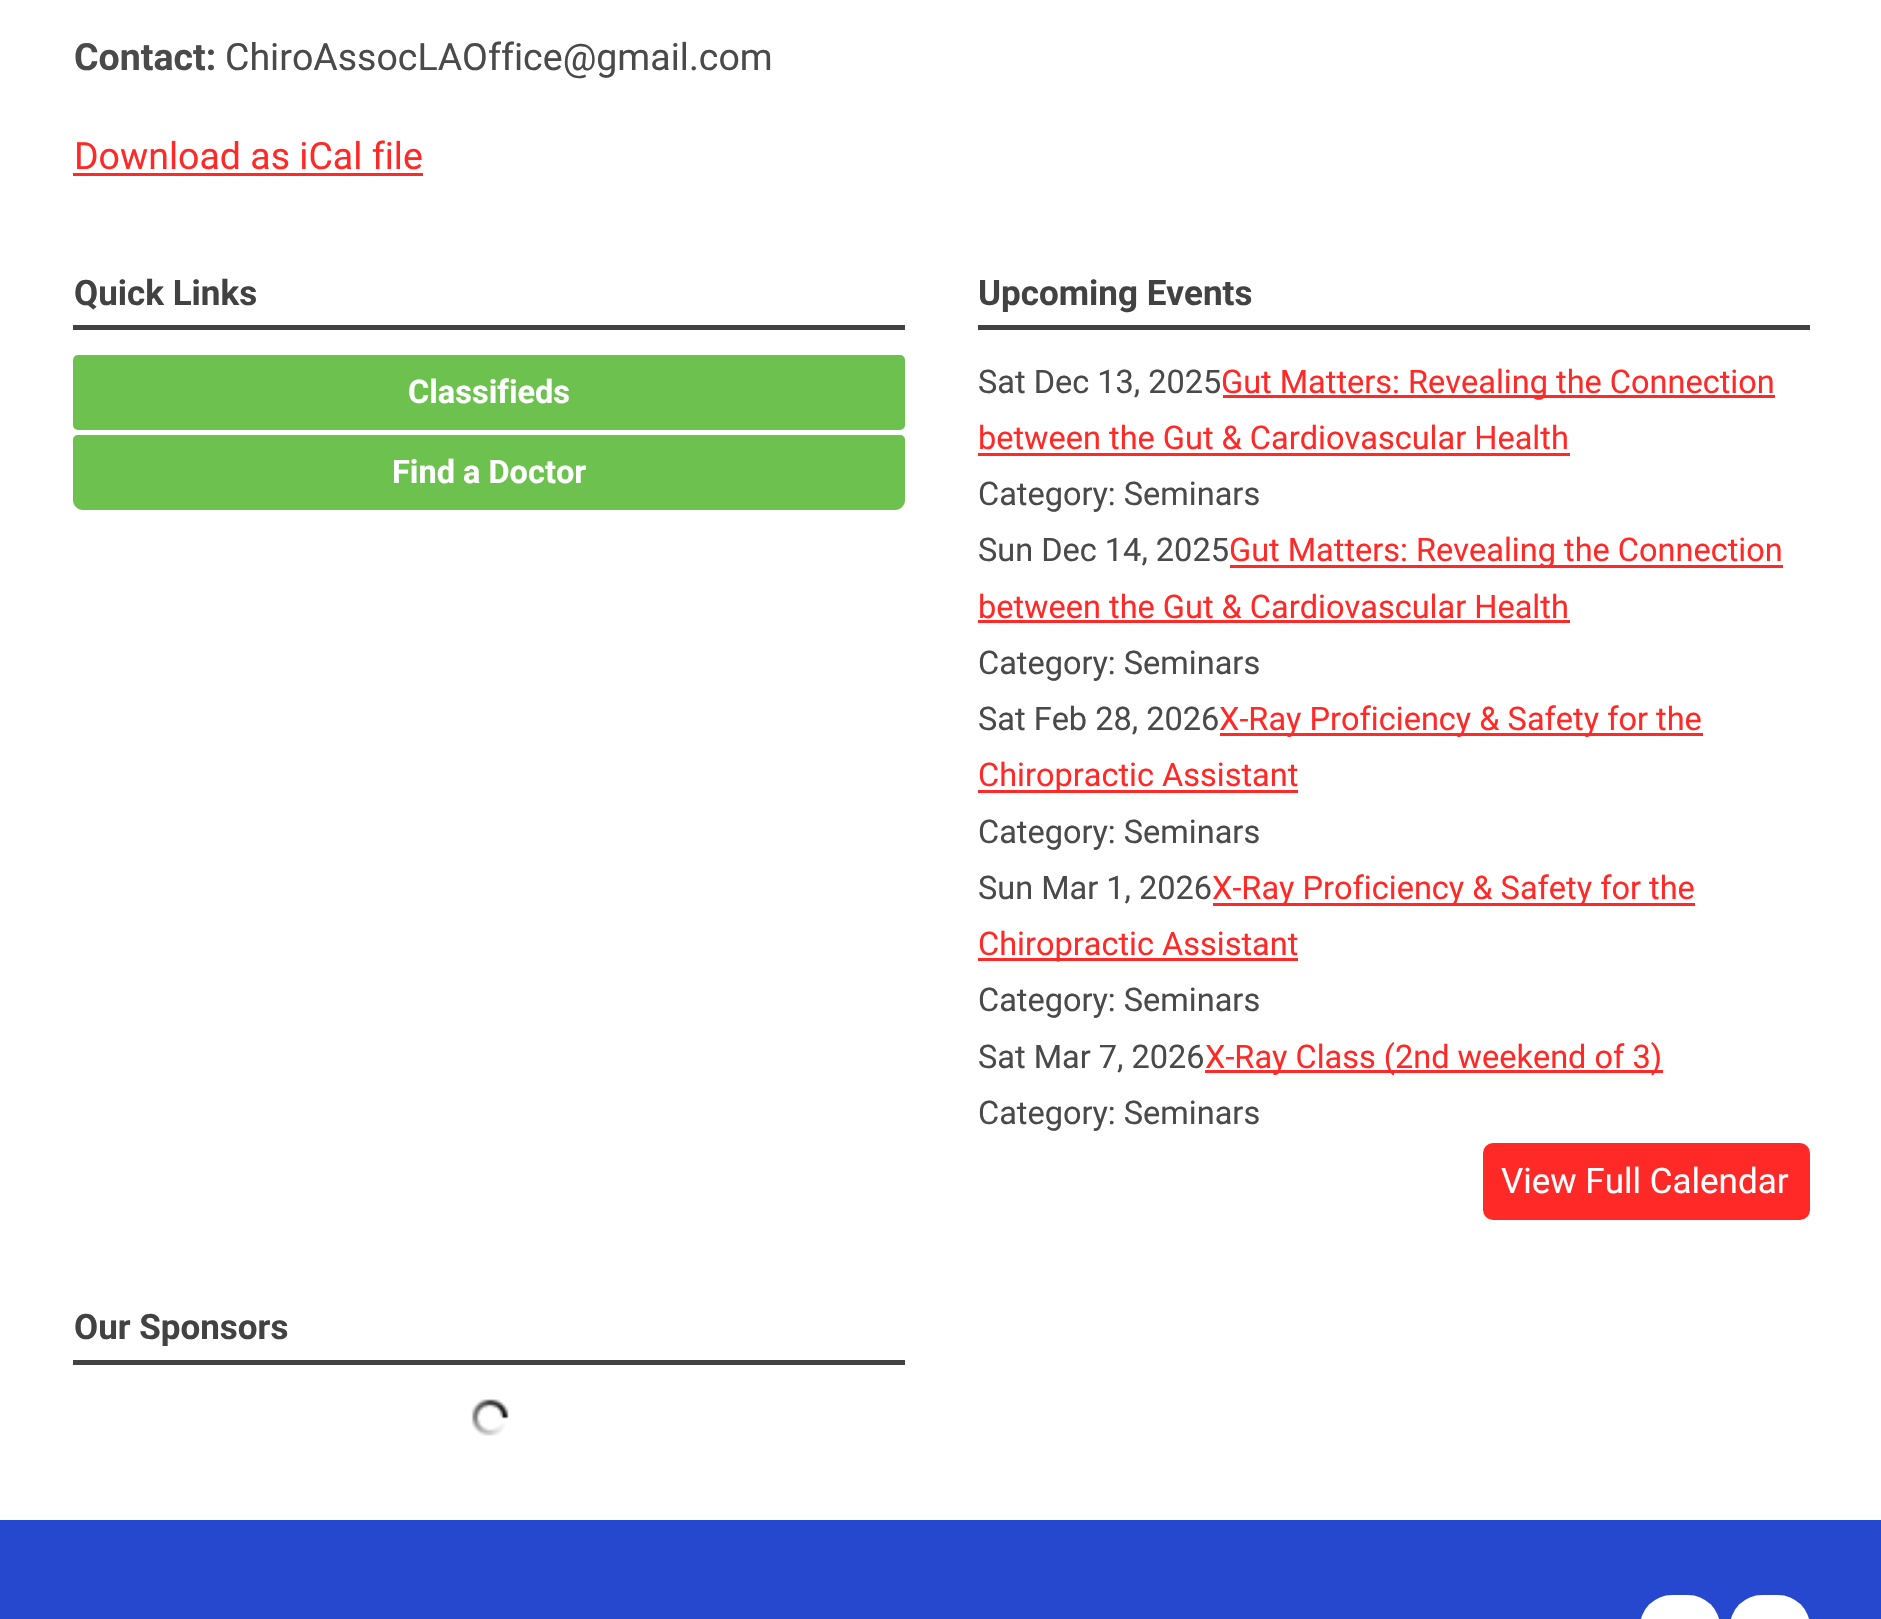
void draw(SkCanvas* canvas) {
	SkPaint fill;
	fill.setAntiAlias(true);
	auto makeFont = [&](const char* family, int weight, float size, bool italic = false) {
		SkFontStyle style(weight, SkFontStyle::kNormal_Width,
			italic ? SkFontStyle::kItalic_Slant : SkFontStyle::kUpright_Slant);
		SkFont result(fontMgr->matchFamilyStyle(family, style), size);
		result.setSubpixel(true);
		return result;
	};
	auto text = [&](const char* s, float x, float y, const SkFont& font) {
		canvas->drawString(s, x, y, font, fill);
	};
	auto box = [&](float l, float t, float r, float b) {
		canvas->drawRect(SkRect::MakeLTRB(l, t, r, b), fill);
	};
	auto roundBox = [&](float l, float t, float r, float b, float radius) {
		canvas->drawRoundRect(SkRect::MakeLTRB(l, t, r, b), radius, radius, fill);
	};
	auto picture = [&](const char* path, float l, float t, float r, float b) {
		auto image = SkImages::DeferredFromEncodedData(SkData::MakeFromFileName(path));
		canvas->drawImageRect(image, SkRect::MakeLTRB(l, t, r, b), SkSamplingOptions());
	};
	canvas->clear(0xFFFFFFFF);
	fill.setColor(0xFFFF2A27);
	box(73, 173, 423, 176);
	fill.setColor(0xFF424242);
	box(73, 325, 905, 330);
	fill.setColor(0xFF6DC14F);
	roundBox(73, 355, 905, 430, 5);
	canvas->drawPath(SkPathBuilder().moveTo(78, 435).lineTo(900, 435).cubicTo(903, 435, 905, 437, 905, 440).lineTo(905, 500).cubicTo(905, 505.5f, 900.5f, 510, 895, 510).lineTo(83, 510).cubicTo(77.5f, 510, 73, 505.5f, 73, 500).lineTo(73, 440).cubicTo(73, 437, 75, 435, 78, 435).close().detach(), fill);
	fill.setColor(0xFF424242);
	box(978, 325, 1810, 330);
	fill.setColor(0xFFFF2A27);
	box(1223, 395, 1775, 398);
	box(978, 453, 1570, 456);
	box(1230, 565, 1783, 568);
	box(978, 620, 1570, 623);
	box(1220, 733, 1703, 736);
	box(978, 790, 1298, 793);
	box(1213, 903, 1695, 906);
	box(978, 958, 1298, 961);
	box(1205, 1070, 1663, 1073);
	roundBox(1483, 1143, 1810, 1220, 10);
	fill.setColor(0xFF424242);
	box(73, 1360, 905, 1365);
	picture("image0.png", 471, 1399, 509, 1436);
	fill.setColor(0xFF2548CE);
	box(0, 1520, 1881, 1619);
	fill.setColor(0xFFFFFFFF);
	roundBox(1640, 1595, 1720, 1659, 40);
	roundBox(1730, 1595, 1810, 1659, 40);
	auto font1 = makeFont("Roboto", 700, 37.5f);
	fill.setColor(0xFF4A4A4A);
	text("Contact:", 74, 70, font1);
	auto font2 = makeFont("Roboto", 400, 37.5f);
	text("ChiroAssocLAOffice@gmail.com", 225, 70, font2);
	fill.setColor(0xFFFF2A27);
	text("Download as iCal file", 74, 169, font2);
	auto font3 = makeFont("Roboto", 700, 35);
	fill.setColor(0xFF424242);
	text("Quick Links", 74, 305, font3);
	auto font4 = makeFont("Roboto", 700, 32.5f);
	fill.setColor(0xFFFFFFFF);
	text("Classifieds", 408, 403, font4);
	text("Find a Doctor", 392, 483, font4);
	fill.setColor(0xFF424242);
	text("Upcoming Events", 978, 305, font3);
	auto font5 = makeFont("Roboto", 400, 32.5f);
	fill.setColor(0xFF4A4A4A);
	text("Sat Dec 13, 2025", 978, 393, font5);
	fill.setColor(0xFFFF2A27);
	text("Gut Matters: Revealing the Connection", 1221, 393, font5);
	text("between the Gut & Cardiovascular Health", 978, 449, font5);
	fill.setColor(0xFF4A4A4A);
	text("Category: Seminars", 978, 505, font5);
	text("Sun Dec 14, 2025", 978, 561, font5);
	fill.setColor(0xFFFF2A27);
	text("Gut Matters: Revealing the Connection", 1229, 561, font5);
	text("between the Gut & Cardiovascular Health", 978, 618, font5);
	fill.setColor(0xFF4A4A4A);
	text("Category: Seminars", 978, 674, font5);
	text("Sat Feb 28, 2026", 978, 730, font5);
	fill.setColor(0xFFFF2A27);
	text("X-Ray Proficiency & Safety for the", 1219, 730, font5);
	text("Chiropractic Assistant", 978, 786, font5);
	fill.setColor(0xFF4A4A4A);
	text("Category: Seminars", 978, 843, font5);
	text("Sun Mar 1, 2026", 978, 899, font5);
	fill.setColor(0xFFFF2A27);
	text("X-Ray Proficiency & Safety for the", 1212, 899, font5);
	text("Chiropractic Assistant", 978, 955, font5);
	fill.setColor(0xFF4A4A4A);
	text("Category: Seminars", 978, 1011, font5);
	text("Sat Mar 7, 2026", 978, 1068, font5);
	fill.setColor(0xFFFF2A27);
	text("X-Ray Class (2nd weekend of 3)", 1205, 1068, font5);
	fill.setColor(0xFF4A4A4A);
	text("Category: Seminars", 978, 1124, font5);
	auto font6 = makeFont("Roboto", 400, 35);
	fill.setColor(0xFFFFFFFF);
	text("View Full Calendar", 1501, 1193, font6);
	fill.setColor(0xFF424242);
	text("Our Sponsors", 74, 1339, font3);
}
